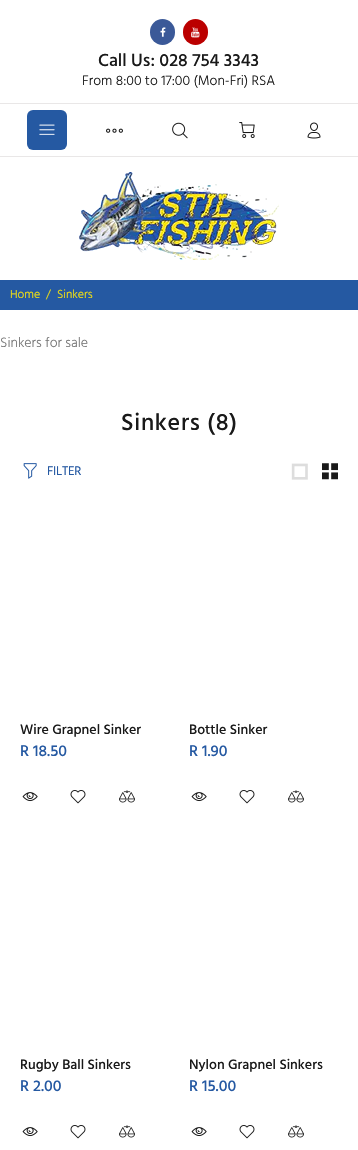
void draw(SkCanvas* canvas) {
	SkPaint fill;
	fill.setAntiAlias(true);
	auto makeFont = [&](const char* family, int weight, float size, bool italic = false) {
		SkFontStyle style(weight, SkFontStyle::kNormal_Width,
			italic ? SkFontStyle::kItalic_Slant : SkFontStyle::kUpright_Slant);
		SkFont result(fontMgr->matchFamilyStyle(family, style), size);
		result.setSubpixel(true);
		return result;
	};
	auto text = [&](const char* s, float x, float y, const SkFont& font) {
		canvas->drawString(s, x, y, font, fill);
	};
	auto spacedText = [&](const char* s, float x, float y, const SkFont& font, const SkPaint& ink, float letter, float word) {
		std::vector<SkGlyphID> glyphs(font.countText(s, strlen(s), SkTextEncoding::kUTF8));
		std::vector<float> xs(glyphs.size());
		font.textToGlyphs(s, strlen(s), SkTextEncoding::kUTF8, glyphs);
		font.getXPos(glyphs, xs, x);
		float extra = 0;
		for (size_t i = 0; i < glyphs.size(); i++) {
			xs[i] += extra;
			extra += letter + word * (glyphs[i] == font.unicharToGlyph(' '));
		}
		canvas->drawTextBlob(SkTextBlob::MakeFromPosHGlyphs(glyphs, xs, y, font), 0, 0, ink);
	};
	auto box = [&](float l, float t, float r, float b) {
		canvas->drawRect(SkRect::MakeLTRB(l, t, r, b), fill);
	};
	auto roundBox = [&](float l, float t, float r, float b, float radius) {
		canvas->drawRoundRect(SkRect::MakeLTRB(l, t, r, b), radius, radius, fill);
	};
	auto picture = [&](const char* path, float l, float t, float r, float b) {
		auto image = SkImages::DeferredFromEncodedData(SkData::MakeFromFileName(path));
		canvas->drawImageRect(image, SkRect::MakeLTRB(l, t, r, b), SkSamplingOptions());
	};
	canvas->clear(0xFFFFFFFF);
	fill.setColor(0xFF3B5998);
	roundBox(150, 19, 175, 45, 12.5f);
	picture("image0.png", 160, 27, 166, 37);
	fill.setColor(0xFFBB0000);
	roundBox(183, 19, 208, 45, 12.5f);
	picture("image1.png", 191, 27, 200, 38);
	fill.setColor(0xFFE9E7E7);
	box(0, 103, 358, 104);
	fill.setColor(0xFF2559A2);
	roundBox(27, 110, 67, 150, 6);
	picture("image2.png", 39, 124, 55, 135);
	picture("image3.png", 106, 128, 123, 133);
	picture("image4.png", 172, 122, 188, 139);
	picture("image5.png", 239, 122, 255, 138);
	picture("image6.png", 307, 122, 321, 139);
	fill.setColor(0xFFE9E7E7);
	box(0, 156, 358, 157);
	picture("image7.png", 79, 172, 279, 260);
	fill.setColor(0xFF2559A2);
	box(0, 280, 358, 310);
	picture("image8.png", 23, 463, 37, 479);
	picture("image9.png", 291, 463, 308, 480);
	picture("image10.png", 322, 463, 338, 480);
	picture("image11.png", 22, 792, 38, 802);
	picture("image12.png", 70, 790, 86, 804);
	picture("image13.png", 119, 790, 135, 803);
	picture("image11.png", 191, 792, 207, 802);
	picture("image12.png", 239, 790, 255, 804);
	picture("image13.png", 288, 790, 304, 803);
	picture("image11.png", 22, 1127, 38, 1137);
	picture("image12.png", 70, 1125, 86, 1139);
	picture("image13.png", 119, 1125, 135, 1138);
	picture("image11.png", 191, 1127, 207, 1137);
	picture("image12.png", 239, 1125, 255, 1139);
	picture("image13.png", 288, 1125, 304, 1138);
	auto font1 = makeFont("Hind", 500, 18);
	fill.setColor(0xFF191919);
	text("Call Us: 028 754 3343", 98, 66, font1);
	auto font2 = makeFont("Hind", 300, 14);
	text("From 8:00 to 17:00 (Mon-Fri) RSA", 82, 85, font2);
	auto font3 = makeFont("Hind", 300, 12);
	fill.setColor(0xFFF2E012);
	text("Home", 10, 298, font3);
	text("/", 46, 298, font3);
	text("Sinkers", 57, 298, font3);
	fill.setColor(0xFF777777);
	text("Sinkers for sale", 0, 347, font2);
	auto font4 = makeFont("Hind", 500, 24);
	fill.setColor(0xFF191919);
	spacedText("Sinkers (8)", 121, 430, font4, fill, 0.75f, 0);
	auto font5 = makeFont("Hind", 400, 13);
	fill.setColor(0xFF2559A2);
	spacedText("FILTER", 47, 475, font5, fill, -0.25f, 0);
	auto font6 = makeFont("Hind", 500, 14);
	fill.setColor(0xFF191919);
	text("Wire Grapnel Sinker", 20, 734, font6);
	auto font7 = makeFont("Hind", 500, 16);
	fill.setColor(0xFF2559A2);
	text("R 18.50", 20, 756, font7);
	fill.setColor(0xFF191919);
	text("Bottle Sinker", 189, 734, font6);
	fill.setColor(0xFF2559A2);
	text("R 1.90", 189, 756, font7);
	fill.setColor(0xFF191919);
	text("Rugby Ball Sinkers", 20, 1069, font6);
	fill.setColor(0xFF2559A2);
	text("R 2.00", 20, 1091, font7);
	fill.setColor(0xFF191919);
	text("Nylon Grapnel Sinkers", 189, 1069, font6);
	fill.setColor(0xFF2559A2);
	text("R 15.00", 189, 1091, font7);
}
